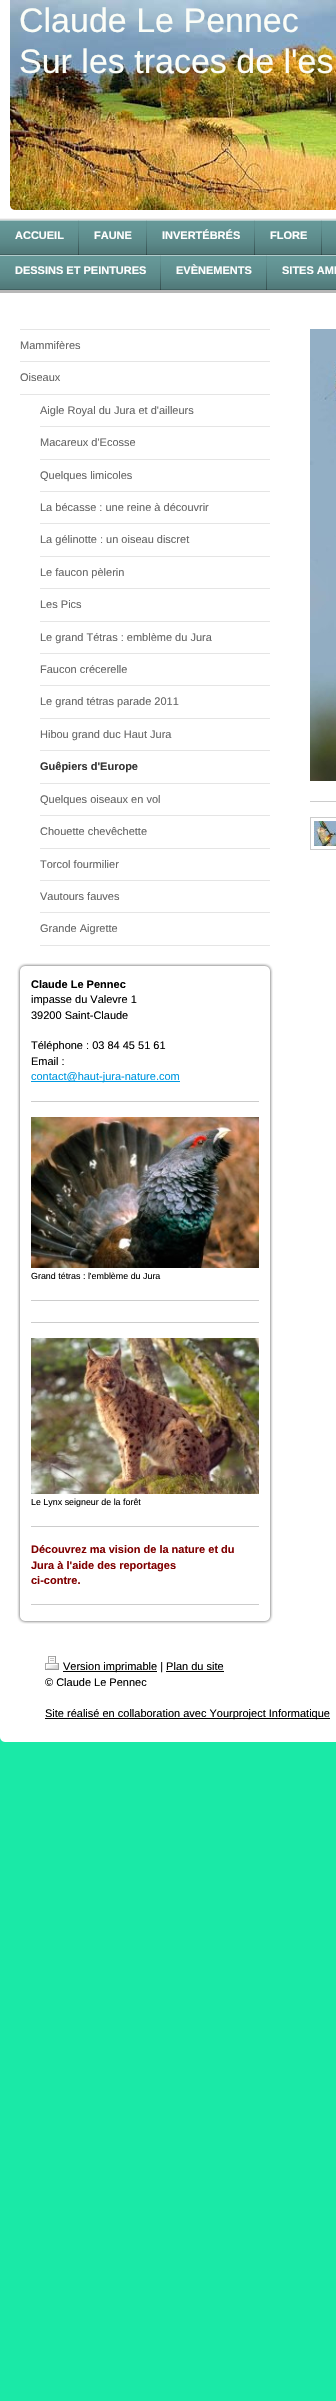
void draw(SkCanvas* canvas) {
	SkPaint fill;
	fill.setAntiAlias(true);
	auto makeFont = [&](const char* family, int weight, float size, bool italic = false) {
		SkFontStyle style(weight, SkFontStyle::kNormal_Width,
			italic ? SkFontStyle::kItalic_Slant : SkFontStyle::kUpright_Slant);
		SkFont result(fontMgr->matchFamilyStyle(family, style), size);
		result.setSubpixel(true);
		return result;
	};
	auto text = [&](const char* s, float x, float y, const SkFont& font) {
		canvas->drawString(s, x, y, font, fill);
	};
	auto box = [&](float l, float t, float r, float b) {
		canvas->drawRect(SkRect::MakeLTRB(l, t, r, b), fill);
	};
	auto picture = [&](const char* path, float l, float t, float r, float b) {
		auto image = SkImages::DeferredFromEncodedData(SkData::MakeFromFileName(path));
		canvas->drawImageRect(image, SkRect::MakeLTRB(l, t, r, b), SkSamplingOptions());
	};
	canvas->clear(0xFF1AE9A7);
	fill.setColor(0xFFFFFFFF);
	box(0, 0, 336, 1736);
	picture("image0.png", 10, 0, 336, 210);
	picture("image1.png", 10, 205, 15, 210);
	picture("image2.png", 0, 218, 336, 220);
	fill.setColor(0xFF669999);
	box(0, 220, 336, 290);
	picture("image3.png", 0, 220, 336, 290);
	picture("image4.png", 78, 220, 79, 255);
	picture("image4.png", 146, 220, 147, 255);
	picture("image4.png", 254, 220, 255, 255);
	picture("image4.png", 321, 220, 322, 255);
	picture("image4.png", 160, 255, 161, 290);
	picture("image4.png", 266, 255, 267, 290);
	fill.setColor(0xFFB7B7B7);
	box(0, 290, 336, 293);
	fill.setColor(0xFFE5E5E5);
	box(20, 329, 270, 330);
	box(20, 361, 270, 362);
	box(20, 394, 270, 395);
	box(40, 426, 270, 427);
	box(40, 459, 270, 460);
	box(40, 491, 270, 492);
	box(40, 523, 270, 524);
	box(40, 556, 270, 557);
	box(40, 588, 270, 589);
	box(40, 621, 270, 622);
	box(40, 653, 270, 654);
	box(40, 685, 270, 686);
	box(40, 718, 270, 719);
	box(40, 750, 270, 751);
	box(40, 783, 270, 784);
	box(40, 815, 270, 816);
	box(40, 848, 270, 849);
	box(40, 880, 270, 881);
	box(40, 912, 270, 913);
	box(40, 945, 270, 946);
	picture("image5.png", 17, 963, 273, 972);
	picture("image6.png", 17, 972, 273, 1615);
	fill.setColor(0xFF0099E1);
	box(31, 1081, 180, 1082);
	fill.setColor(0xFFCCCCCC);
	box(31, 1101, 259, 1102);
	picture("image7.png", 31, 1117, 259, 1268);
	box(31, 1300, 259, 1301);
	box(31, 1322, 259, 1323);
	picture("image8.png", 31, 1338, 259, 1494);
	box(31, 1526, 259, 1527);
	box(31, 1604, 259, 1605);
	picture("image9.png", 17, 1615, 273, 1624);
	picture("image10.png", 310, 329, 336, 781);
	box(310, 801, 336, 802);
	fill.setStyle(SkPaint::kStroke_Style);
	fill.setStrokeWidth(1);
	canvas->drawRect(SkRect::MakeLTRB(310.5f, 817.5f, 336.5f, 849.5f), fill);
	picture("image11.png", 314, 821, 336, 846);
	picture("image12.png", 45, 1656, 59, 1670);
	fill.setStyle(SkPaint::kFill_Style);
	fill.setColor(0xFF000000);
	box(63, 1671, 157, 1672);
	box(166, 1671, 224, 1672);
	box(45, 1718, 330, 1719);
	picture("image13.png", 0, 1736, 6, 1742);
	fill.setColor(0xFFFFFFFF);
	box(6, 1736, 336, 1742);
	auto font1 = makeFont("Liberation Sans", 400, 34);
	fill.setColor(0xFFFBFDF7);
	text("Claude Le Pennec", 19, 32, font1);
	text("Sur les traces de l'es", 19, 73, font1);
	auto font2 = makeFont("Liberation Sans", 700, 11);
	fill.setColor(0xFFFFFFFF);
	text("ACCUEIL", 15, 239, font2);
	text("FAUNE", 94, 239, font2);
	text("INVERTÉBRÉS", 162, 239, font2);
	text("FLORE", 270, 239, font2);
	text("DESSINS ET PEINTURES", 15, 274, font2);
	text("EVÈNEMENTS", 176, 274, font2);
	text("SITES AMI", 282, 274, font2);
	auto font3 = makeFont("Liberation Sans", 400, 11);
	fill.setColor(0xFF666666);
	text("Mammifères", 20, 349, font3);
	text("Oiseaux", 20, 381, font3);
	text("Aigle Royal du Jura et d'ailleurs", 40, 414, font3);
	text("Macareux d'Ecosse", 40, 446, font3);
	text("Quelques limicoles", 40, 479, font3);
	text("La bécasse : une reine à découvrir", 40, 511, font3);
	text("La gélinotte : un oiseau discret", 40, 543, font3);
	text("Le faucon pèlerin", 40, 576, font3);
	text("Les Pics", 40, 608, font3);
	text("Le grand Tétras : emblème du Jura", 40, 641, font3);
	text("Faucon crécerelle", 40, 673, font3);
	text("Le grand tétras parade 2011", 40, 705, font3);
	text("Hibou grand duc Haut Jura", 40, 738, font3);
	fill.setColor(0xFF333333);
	text("Guêpiers d'Europe", 40, 770, font2);
	fill.setColor(0xFF666666);
	text("Quelques oiseaux en vol", 40, 803, font3);
	text("Chouette chevêchette", 40, 835, font3);
	text("Torcol fourmilier", 40, 868, font3);
	text("Vautours fauves", 40, 900, font3);
	text("Grande Aigrette", 40, 932, font3);
	fill.setColor(0xFF000000);
	text("Claude Le Pennec", 31, 988, font2);
	text("impasse du Valevre 1", 31, 1003, font3);
	text("39200 Saint-Claude", 31, 1019, font3);
	text("Téléphone : 03 84 45 51 61", 31, 1049, font3);
	text("Email :", 31, 1065, font3);
	fill.setColor(0xFF0099E1);
	text("contact@haut-jura-nature.com", 31, 1080, font3);
	auto font4 = makeFont("Liberation Sans", 400, 8.9f);
	fill.setColor(0xFF000000);
	text("Grand tétras : l'emblème du Jura", 31, 1279, font4);
	text("Le Lynx seigneur de la forêt", 31, 1505, font4);
	fill.setColor(0xFF800000);
	text("Découvrez ma vision de la nature et du", 31, 1553, font2);
	text("Jura à l'aide des reportages", 31, 1569, font2);
	text("ci-contre.", 31, 1584, font2);
	fill.setColor(0xFF000000);
	text("Version imprimable | Plan du site", 63, 1670, font3);
	text("© Claude Le Pennec", 45, 1686, font3);
	text("Site réalisé en collaboration avec Yourproject Informatique", 45, 1717, font3);
}
